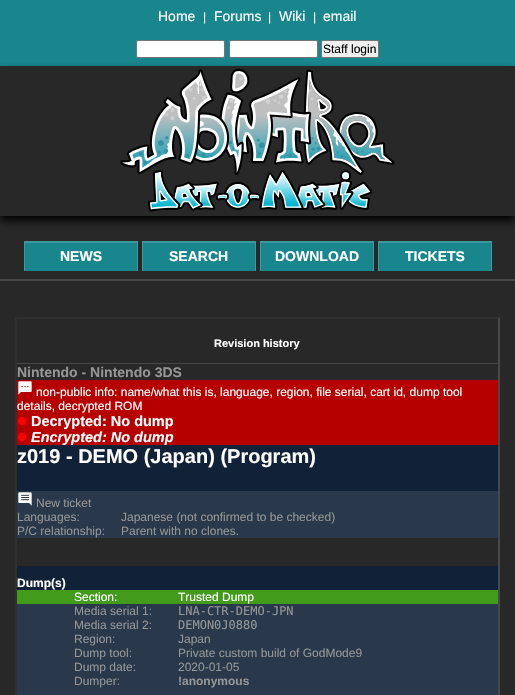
void draw(SkCanvas* canvas) {
	SkPaint fill;
	fill.setAntiAlias(true);
	auto makeFont = [&](const char* family, int weight, float size, bool italic = false) {
		SkFontStyle style(weight, SkFontStyle::kNormal_Width,
			italic ? SkFontStyle::kItalic_Slant : SkFontStyle::kUpright_Slant);
		SkFont result(fontMgr->matchFamilyStyle(family, style), size);
		result.setSubpixel(true);
		return result;
	};
	auto text = [&](const char* s, float x, float y, const SkFont& font) {
		canvas->drawString(s, x, y, font, fill);
	};
	auto box = [&](float l, float t, float r, float b) {
		canvas->drawRect(SkRect::MakeLTRB(l, t, r, b), fill);
	};
	auto picture = [&](const char* path, float l, float t, float r, float b) {
		auto image = SkImages::DeferredFromEncodedData(SkData::MakeFromFileName(path));
		canvas->drawImageRect(image, SkRect::MakeLTRB(l, t, r, b), SkSamplingOptions());
	};
	canvas->clear(0xFF282828);
	fill.setColor(0xFF19868D);
	box(0, 0, 515, 66);
	fill.setColor(0xFFFFFFFF);
	canvas->drawRoundRect(SkRect::MakeLTRB(136.5f, 40.5f, 224.5f, 57.5f), 1.5f, 1.5f, fill);
	fill.setStyle(SkPaint::kStroke_Style);
	fill.setStrokeWidth(1);
	fill.setColor(0xFF767676);
	canvas->drawRoundRect(SkRect::MakeLTRB(136.5f, 40.5f, 224.5f, 57.5f), 1.5f, 1.5f, fill);
	fill.setStyle(SkPaint::kFill_Style);
	fill.setColor(0xFFFFFFFF);
	canvas->drawRoundRect(SkRect::MakeLTRB(229.5f, 40.5f, 317.5f, 57.5f), 1.5f, 1.5f, fill);
	fill.setStyle(SkPaint::kStroke_Style);
	fill.setColor(0xFF767676);
	canvas->drawRoundRect(SkRect::MakeLTRB(229.5f, 40.5f, 317.5f, 57.5f), 1.5f, 1.5f, fill);
	fill.setStyle(SkPaint::kFill_Style);
	fill.setColor(0xFFEFEFEF);
	canvas->drawRoundRect(SkRect::MakeLTRB(321.5f, 40.5f, 378.5f, 57.5f), 1.5f, 1.5f, fill);
	fill.setStyle(SkPaint::kStroke_Style);
	fill.setColor(0xFF767676);
	canvas->drawRoundRect(SkRect::MakeLTRB(321.5f, 40.5f, 378.5f, 57.5f), 1.5f, 1.5f, fill);
	canvas->save();
	canvas->clipPath(SkPathBuilder(SkPathFillType::kEvenOdd).moveTo(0, 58).lineTo(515, 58).lineTo(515, 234).lineTo(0, 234).close().moveTo(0, 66).lineTo(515, 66).lineTo(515, 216).lineTo(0, 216).close().detach(), true);
	fill.setStyle(SkPaint::kFill_Style);
	fill.setColor(0xF2000000);
	fill.setMaskFilter(SkMaskFilter::MakeBlur(kNormal_SkBlurStyle, 4));
	canvas->drawRect(SkRect::MakeLTRB(0, 71, 515, 221), fill);
	fill.setMaskFilter(nullptr);
	canvas->restore();
	picture("image0.png", 120, 68, 395, 212);
	fill.setColor(0xFF484848);
	box(0, 279, 515, 281);
	fill.setColor(0xFF19868D);
	box(25, 243, 137, 271);
	canvas->save();
	canvas->clipRect(SkRect::MakeLTRB(24, 241, 138, 271));
	fill.setColor(0xFF3E999F);
	canvas->drawPath(SkPathBuilder(SkPathFillType::kEvenOdd).moveTo(-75, 142).lineTo(237, 142).lineTo(237, 370).lineTo(-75, 370).close().moveTo(25, 243).lineTo(137, 243).lineTo(137, 271).lineTo(25, 271).close().detach(), fill);
	canvas->restore();
	fill.setColor(0xFF19868D);
	box(143, 243, 255, 271);
	canvas->save();
	canvas->clipRect(SkRect::MakeLTRB(142, 241, 256, 271));
	fill.setColor(0xFF3E999F);
	canvas->drawPath(SkPathBuilder(SkPathFillType::kEvenOdd).moveTo(43, 142).lineTo(355, 142).lineTo(355, 370).lineTo(43, 370).close().moveTo(143, 243).lineTo(255, 243).lineTo(255, 271).lineTo(143, 271).close().detach(), fill);
	canvas->restore();
	fill.setColor(0xFF19868D);
	box(261, 243, 373, 271);
	canvas->save();
	canvas->clipRect(SkRect::MakeLTRB(260, 241, 374, 271));
	fill.setColor(0xFF3E999F);
	canvas->drawPath(SkPathBuilder(SkPathFillType::kEvenOdd).moveTo(161, 142).lineTo(473, 142).lineTo(473, 370).lineTo(161, 370).close().moveTo(261, 243).lineTo(373, 243).lineTo(373, 271).lineTo(261, 271).close().detach(), fill);
	canvas->restore();
	fill.setColor(0xFF19868D);
	box(379, 243, 491, 271);
	canvas->save();
	canvas->clipRect(SkRect::MakeLTRB(378, 241, 492, 271));
	fill.setColor(0xFF3E999F);
	canvas->drawPath(SkPathBuilder(SkPathFillType::kEvenOdd).moveTo(279, 142).lineTo(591, 142).lineTo(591, 370).lineTo(279, 370).close().moveTo(379, 243).lineTo(491, 243).lineTo(491, 271).lineTo(379, 271).close().detach(), fill);
	canvas->restore();
	fill.setColor(0xFF303030);
	canvas->drawPath(SkPathBuilder().moveTo(15, 317).lineTo(500, 317).lineTo(498, 319).lineTo(17, 319).close().detach(), fill);
	fill.setColor(0xFF484848);
	canvas->drawPath(SkPathBuilder().moveTo(500, 317).lineTo(500, 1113).lineTo(498, 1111).lineTo(498, 319).close().detach(), fill);
	fill.setColor(0xFF303030);
	canvas->drawPath(SkPathBuilder().moveTo(15, 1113).lineTo(15, 317).lineTo(17, 319).lineTo(17, 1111).close().detach(), fill);
	fill.setColor(0xFF484848);
	box(17, 363, 498, 364);
	fill.setColor(0xFFB60000);
	box(17, 380, 498, 445);
	picture("image1.png", 18, 381, 32, 395);
	picture("image2.png", 17, 416, 27, 426);
	picture("image2.png", 17, 432, 27, 442);
	fill.setColor(0xFF112238);
	box(17, 445, 498, 491);
	fill.setColor(0xFF29384B);
	box(17, 491, 498, 510);
	picture("image3.png", 18, 492, 32, 506);
	box(17, 510, 498, 524);
	box(17, 524, 498, 538);
	fill.setColor(0xFF112238);
	box(17, 566, 498, 590);
	fill.setColor(0xFF429B1B);
	box(17, 590, 498, 604);
	fill.setColor(0xFF29384B);
	box(17, 604, 498, 618);
	box(17, 618, 498, 632);
	box(17, 632, 498, 646);
	box(17, 646, 498, 660);
	box(17, 660, 498, 674);
	box(17, 674, 498, 688);
	box(17, 688, 498, 695);
	auto font1 = makeFont("Liberation Sans", 400, 14);
	fill.setColor(0xFFFFFFFF);
	text("Home", 158, 21, font1);
	auto font2 = makeFont("Liberation Sans", 400, 12);
	text("|", 203, 21, font2);
	text("Forums", 214, 21, font1);
	text("|", 268, 21, font2);
	text("Wiki", 279, 21, font1);
	text("|", 313, 21, font2);
	text("email", 323, 21, font1);
	fill.setColor(0xFF000000);
	text("Staff login", 323, 53, font2);
	auto font3 = makeFont("Liberation Sans", 700, 14);
	fill.setColor(0xFFFFFFFF);
	text("NEWS", 60, 261, font3);
	text("SEARCH", 169, 261, font3);
	text("DOWNLOAD", 275, 261, font3);
	text("TICKETS", 405, 261, font3);
	auto font4 = makeFont("Liberation Sans", 700, 11);
	text("Revision history", 214, 347, font4);
	fill.setColor(0xFF959595);
	text("Nintendo - Nintendo 3DS", 17, 377, font3);
	fill.setColor(0xFFFFFFFF);
	text("non-public info: name/what this is, language, region, file serial, cart id, dump tool", 36, 396, font2);
	text("details, decrypted ROM", 17, 410, font2);
	auto font5 = makeFont("Liberation Sans", 700, 14.5f);
	text("Decrypted: No dump", 31, 426, font5);
	auto font6 = makeFont("Liberation Sans", 700, 14.5f, true);
	text("Encrypted: No dump", 31, 442, font6);
	auto font7 = makeFont("Liberation Sans", 700, 20);
	text("z019 - DEMO (Japan) (Program)", 17, 463, font7);
	fill.setColor(0xFF959595);
	text("New ticket", 36, 507, font2);
	text("Languages:", 17, 521, font2);
	text("Japanese (not confirmed to be checked)", 121, 521, font2);
	text("P/C relationship:", 17, 535, font2);
	text("Parent with no clones.", 121, 535, font2);
	auto font8 = makeFont("Liberation Sans", 700, 12);
	fill.setColor(0xFFFFFFFF);
	text("Dump(s)", 17, 587, font8);
	text("Section:", 74, 601, font2);
	text("Trusted Dump", 178, 601, font2);
	fill.setColor(0xFF959595);
	text("Media serial 1:", 74, 615, font2);
	auto font9 = makeFont("DejaVu Sans Mono", 400, 12);
	text("LNA-CTR-DEMO-JPN", 178, 615, font9);
	text("Media serial 2:", 74, 629, font2);
	text("DEMON0J0880", 178, 629, font9);
	text("Region:", 74, 643, font2);
	text("Japan", 178, 643, font2);
	text("Dump tool:", 74, 657, font2);
	text("Private custom build of GodMode9", 178, 657, font2);
	text("Dump date:", 74, 671, font2);
	text("2020-01-05", 178, 671, font2);
	text("Dumper:", 74, 685, font2);
	text("!anonymous", 178, 685, font8);
}
